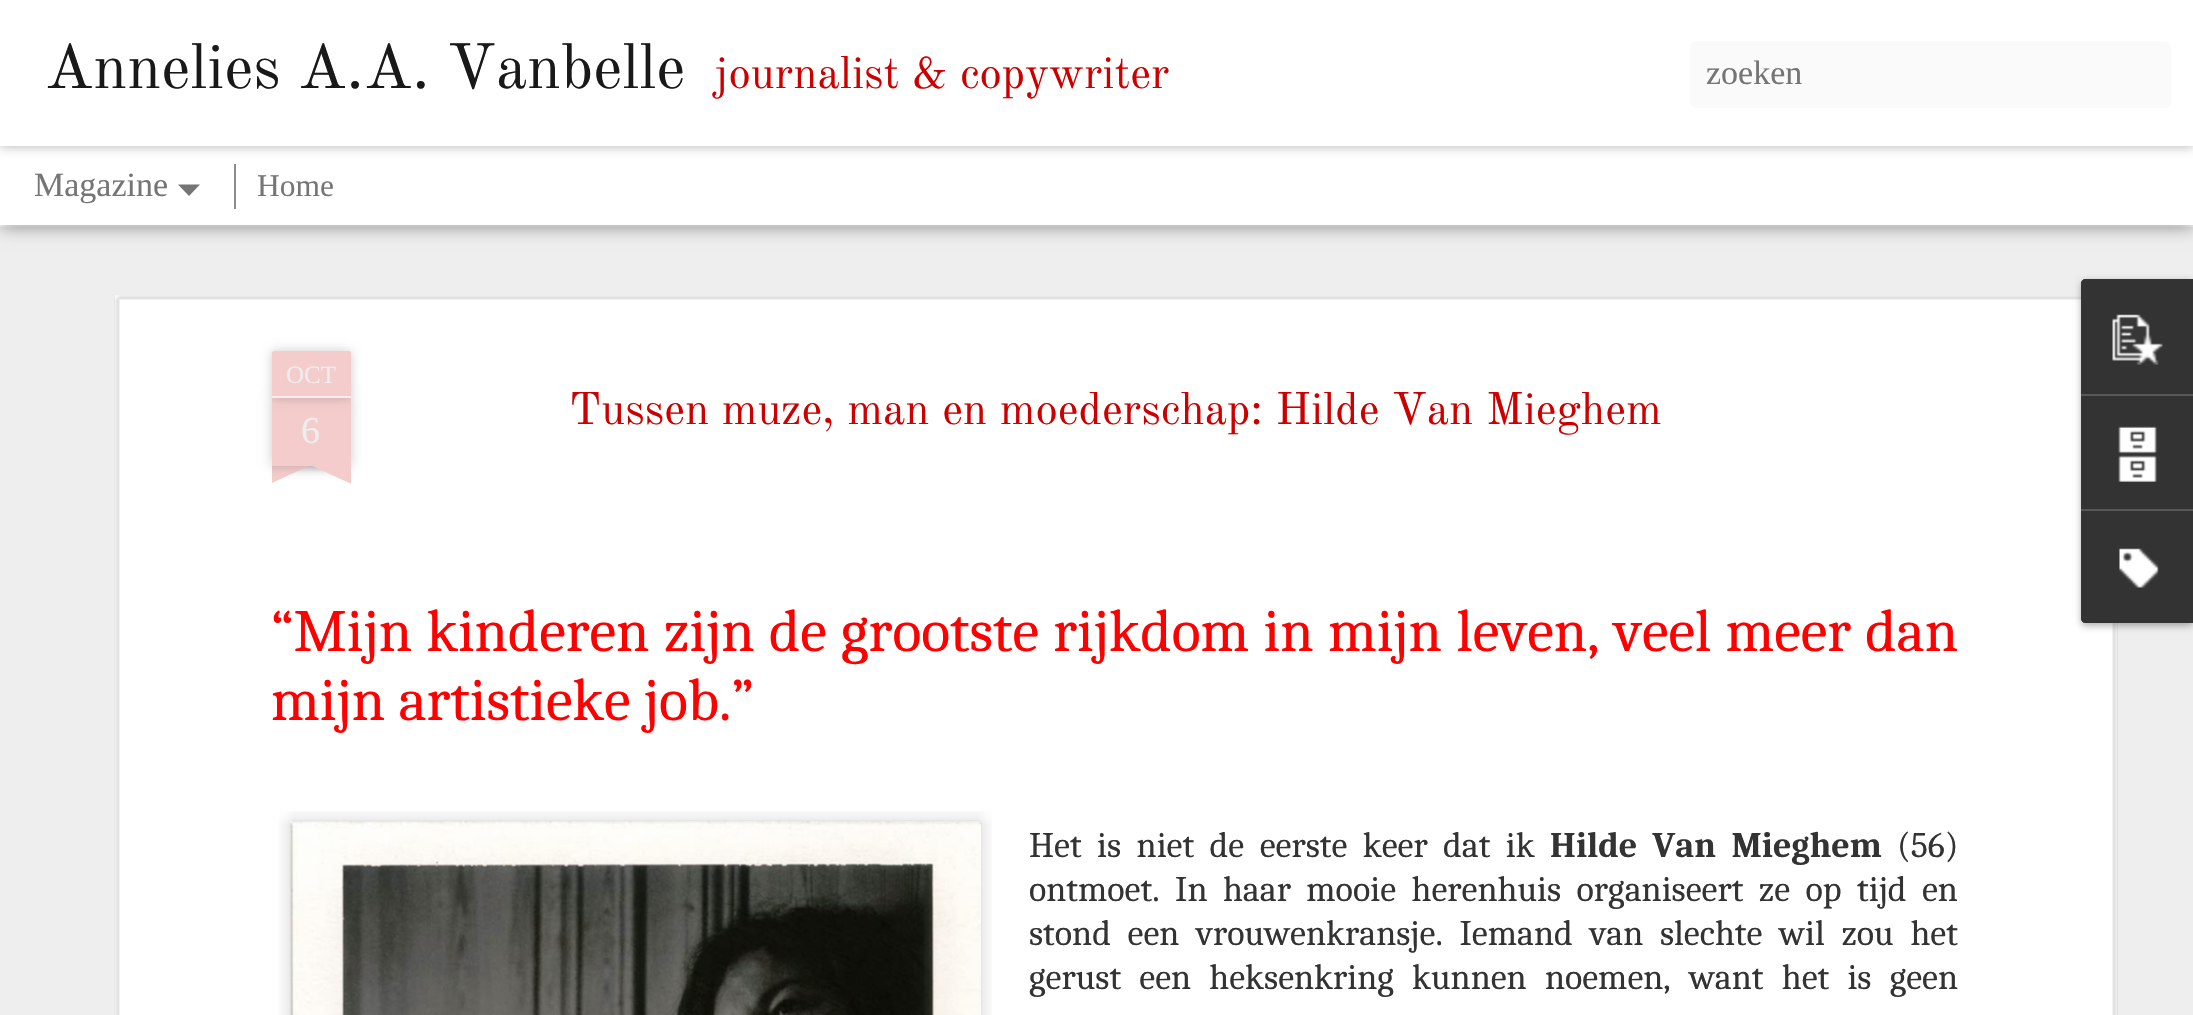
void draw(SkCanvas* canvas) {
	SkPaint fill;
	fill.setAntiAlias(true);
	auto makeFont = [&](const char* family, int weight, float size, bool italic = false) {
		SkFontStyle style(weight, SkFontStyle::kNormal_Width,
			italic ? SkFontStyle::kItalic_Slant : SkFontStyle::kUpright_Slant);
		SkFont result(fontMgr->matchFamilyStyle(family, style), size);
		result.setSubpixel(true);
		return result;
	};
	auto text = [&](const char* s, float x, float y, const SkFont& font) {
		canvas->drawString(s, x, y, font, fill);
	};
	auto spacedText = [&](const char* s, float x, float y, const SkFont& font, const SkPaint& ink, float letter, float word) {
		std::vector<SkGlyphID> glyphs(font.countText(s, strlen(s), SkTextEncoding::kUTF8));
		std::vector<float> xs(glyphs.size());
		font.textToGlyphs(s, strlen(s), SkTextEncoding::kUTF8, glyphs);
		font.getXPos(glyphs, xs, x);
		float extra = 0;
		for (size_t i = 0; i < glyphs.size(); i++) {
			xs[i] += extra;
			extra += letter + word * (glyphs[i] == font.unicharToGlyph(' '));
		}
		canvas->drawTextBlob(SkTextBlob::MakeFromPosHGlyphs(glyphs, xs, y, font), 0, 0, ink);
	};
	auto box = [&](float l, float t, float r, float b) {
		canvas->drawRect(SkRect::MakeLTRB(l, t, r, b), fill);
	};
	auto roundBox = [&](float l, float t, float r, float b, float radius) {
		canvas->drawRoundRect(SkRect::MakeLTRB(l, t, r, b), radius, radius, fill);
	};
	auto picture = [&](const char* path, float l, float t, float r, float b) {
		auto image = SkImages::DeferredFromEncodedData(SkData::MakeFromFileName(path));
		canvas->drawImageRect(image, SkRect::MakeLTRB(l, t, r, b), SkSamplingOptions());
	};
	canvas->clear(0xFFFFFFFF);
	fill.setColor(0xFFEEEEEE);
	box(0, 227, 2193, 1015);
	fill.setColor(0x80000000);
	fill.setMaskFilter(SkMaskFilter::MakeBlur(kNormal_SkBlurStyle, 9));
	canvas->drawRect(SkRect::MakeLTRB(0, 146, 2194, 225), fill);
	fill.setMaskFilter(nullptr);
	fill.setColor(0xFFFFFFFF);
	box(0, 146, 2193, 225);
	fill.setColor(0x4D000000);
	fill.setMaskFilter(SkMaskFilter::MakeBlur(kNormal_SkBlurStyle, 5.5f));
	canvas->drawRect(SkRect::MakeLTRB(0, 0, 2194, 146), fill);
	fill.setMaskFilter(nullptr);
	fill.setColor(0xFFFFFFFF);
	box(0, 0, 2193, 146);
	fill.setColor(0xFFFAFAFA);
	roundBox(1690, 41, 2171, 108, 7);
	fill.setColor(0xFF757575);
	canvas->drawPath(SkPathBuilder().moveTo(178, 184.5f).lineTo(200, 184.5f).lineTo(189, 196).close().detach(), fill);
	fill.setColor(0xFF8C8C8C);
	box(234, 164, 236, 209);
	fill.setColor(0xFFFFFFFF);
	box(115, 295, 2117, 1015);
	picture("image0.png", 114, 295, 2118, 1015);
	fill.setColor(0x33000000);
	fill.setMaskFilter(SkMaskFilter::MakeBlur(kNormal_SkBlurStyle, 5.5f));
	canvas->drawRect(SkRect::MakeLTRB(272, 398, 351, 466), fill);
	fill.setMaskFilter(nullptr);
	fill.setColor(0xFFF4CCCC);
	box(272, 398, 351, 466);
	fill.setColor(0x33000000);
	fill.setMaskFilter(SkMaskFilter::MakeBlur(kNormal_SkBlurStyle, 5.5f));
	canvas->drawRoundRect(SkRect::MakeLTRB(272, 351, 351, 398), 2, 2, fill);
	fill.setMaskFilter(nullptr);
	fill.setColor(0xFFF4CCCC);
	canvas->drawPath(SkPathBuilder().moveTo(274, 351).lineTo(349, 351).cubicTo(350, 351, 351, 352, 351, 353).lineTo(351, 398).lineTo(272, 398).lineTo(272, 353).cubicTo(272, 352, 273, 351, 274, 351).close().detach(), fill);
	fill.setColor(0xFFFBEBEB);
	box(272, 396, 351, 398);
	canvas->save();
	canvas->clipRect(SkRect::MakeLTRB(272, 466, 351, 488));
	fill.setColor(0x33000000);
	fill.setMaskFilter(SkMaskFilter::MakeBlur(kNormal_SkBlurStyle, 5.5f));
	canvas->drawRect(SkRect::MakeLTRB(252, 443, 365, 466), fill);
	fill.setMaskFilter(nullptr);
	canvas->restore();
	canvas->save();
	canvas->clipRect(SkRect::MakeLTRB(272, 466, 351, 488));
	fill.setColor(0xFFF4CCCC);
	canvas->drawPath(SkPathBuilder().moveTo(251, 468).lineTo(353, 421).lineTo(363, 441).lineTo(261, 488).close().detach(), fill);
	canvas->restore();
	canvas->save();
	canvas->clipRect(SkRect::MakeLTRB(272, 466, 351, 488));
	fill.setColor(0x33000000);
	fill.setMaskFilter(SkMaskFilter::MakeBlur(kNormal_SkBlurStyle, 5.5f));
	canvas->drawRect(SkRect::MakeLTRB(259, 443, 371, 466), fill);
	fill.setMaskFilter(nullptr);
	canvas->restore();
	canvas->save();
	canvas->clipRect(SkRect::MakeLTRB(272, 466, 351, 488));
	fill.setColor(0xFFF4CCCC);
	canvas->drawPath(SkPathBuilder().moveTo(268, 421).lineTo(370, 468).lineTo(360, 488).lineTo(258, 441).close().detach(), fill);
	canvas->restore();
	picture("image1.png", 279, 811, 992, 1015);
	picture("image2.png", 290, 821, 982, 1015);
	fill.setColor(0x4D000000);
	fill.setMaskFilter(SkMaskFilter::MakeBlur(kNormal_SkBlurStyle, 3.5f));
	canvas->drawRoundRect(SkRect::MakeLTRB(2081, 281, 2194, 626), 5, 5, fill);
	fill.setMaskFilter(nullptr);
	fill.setColor(0xFF333333);
	canvas->drawPath(SkPathBuilder().moveTo(2086, 279).lineTo(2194, 279).lineTo(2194, 623).lineTo(2086, 623).cubicTo(2083, 623, 2081, 621, 2081, 618).lineTo(2081, 284).cubicTo(2081, 281, 2083, 279, 2086, 279).close().detach(), fill);
	canvas->drawPath(SkPathBuilder().moveTo(2086, 279).lineTo(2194, 279).lineTo(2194, 394).lineTo(2081, 394).lineTo(2081, 284).cubicTo(2081, 281, 2083, 279, 2086, 279).close().detach(), fill);
	picture("image3.png", 2112, 314, 2163, 365);
	fill.setColor(0xFF585858);
	box(2081, 394, 2193, 396);
	picture("image4.png", 2118, 426, 2157, 482);
	fill.setColor(0xFF333333);
	canvas->drawPath(SkPathBuilder().moveTo(2081, 509).lineTo(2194, 509).lineTo(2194, 623).lineTo(2086, 623).cubicTo(2083, 623, 2081, 621, 2081, 618).close().detach(), fill);
	fill.setColor(0xFF585858);
	box(2081, 509, 2193, 511);
	picture("image5.png", 2119, 548, 2159, 588);
	auto font1 = makeFont("Old Standard TT", 400, 63);
	fill.setColor(0xFF191919);
	text("Annelies A.A. Vanbelle", 45, 88, font1);
	auto font2 = makeFont("Old Standard TT", 400, 45);
	fill.setColor(0xFFCC0000);
	text("journalist & copywriter", 714, 88, font2);
	auto font3 = makeFont("Liberation Serif", 400, 34);
	fill.setColor(0xFF757575);
	text("zoeken", 1706, 84, font3);
	text("Magazine", 34, 196, font3);
	auto font4 = makeFont("Liberation Serif", 400, 31.5f);
	text("Home", 257, 196, font4);
	auto font5 = makeFont("Liberation Serif", 400, 25);
	fill.setColor(0xFFEEEEEE);
	text("OCT", 286, 383, font5);
	auto font6 = makeFont("Liberation Serif", 400, 38);
	text("6", 301, 443, font6);
	fill.setColor(0xFFCC0000);
	text("Tussen muze, man en moederschap: Hilde Van Mieghem", 569, 424, font2);
	auto font7 = makeFont("Caladea", 400, 60);
	fill.setColor(0xFFFF0000);
	spacedText("“Mijn kinderen zijn de grootste rijkdom in mijn leven, veel meer dan", 271, 651, font7, fill, 0, 1.1f);
	text("mijn artistieke job.”", 271, 720, font7);
	auto font8 = makeFont("Caladea", 400, 36);
	fill.setColor(0xFF333333);
	spacedText("Het is niet de eerste keer dat ik", 1029, 857, font8, fill, 0, 7.5f);
	auto font9 = makeFont("Caladea", 700, 36);
	spacedText("Hilde Van Mieghem", 1550, 857, font9, fill, 0, 7.5f);
	text("(56)", 1897, 857, font8);
	spacedText("ontmoet. In haar mooie herenhuis organiseert ze op tijd en", 1029, 901, font8, fill, 0, 7.5f);
	spacedText("stond een vrouwenkransje. Iemand van slechte wil zou het", 1029, 945, font8, fill, 0, 8.75f);
	spacedText("gerust een heksenkring kunnen noemen, want het is geen", 1029, 989, font8, fill, 0, 10.25f);
}
